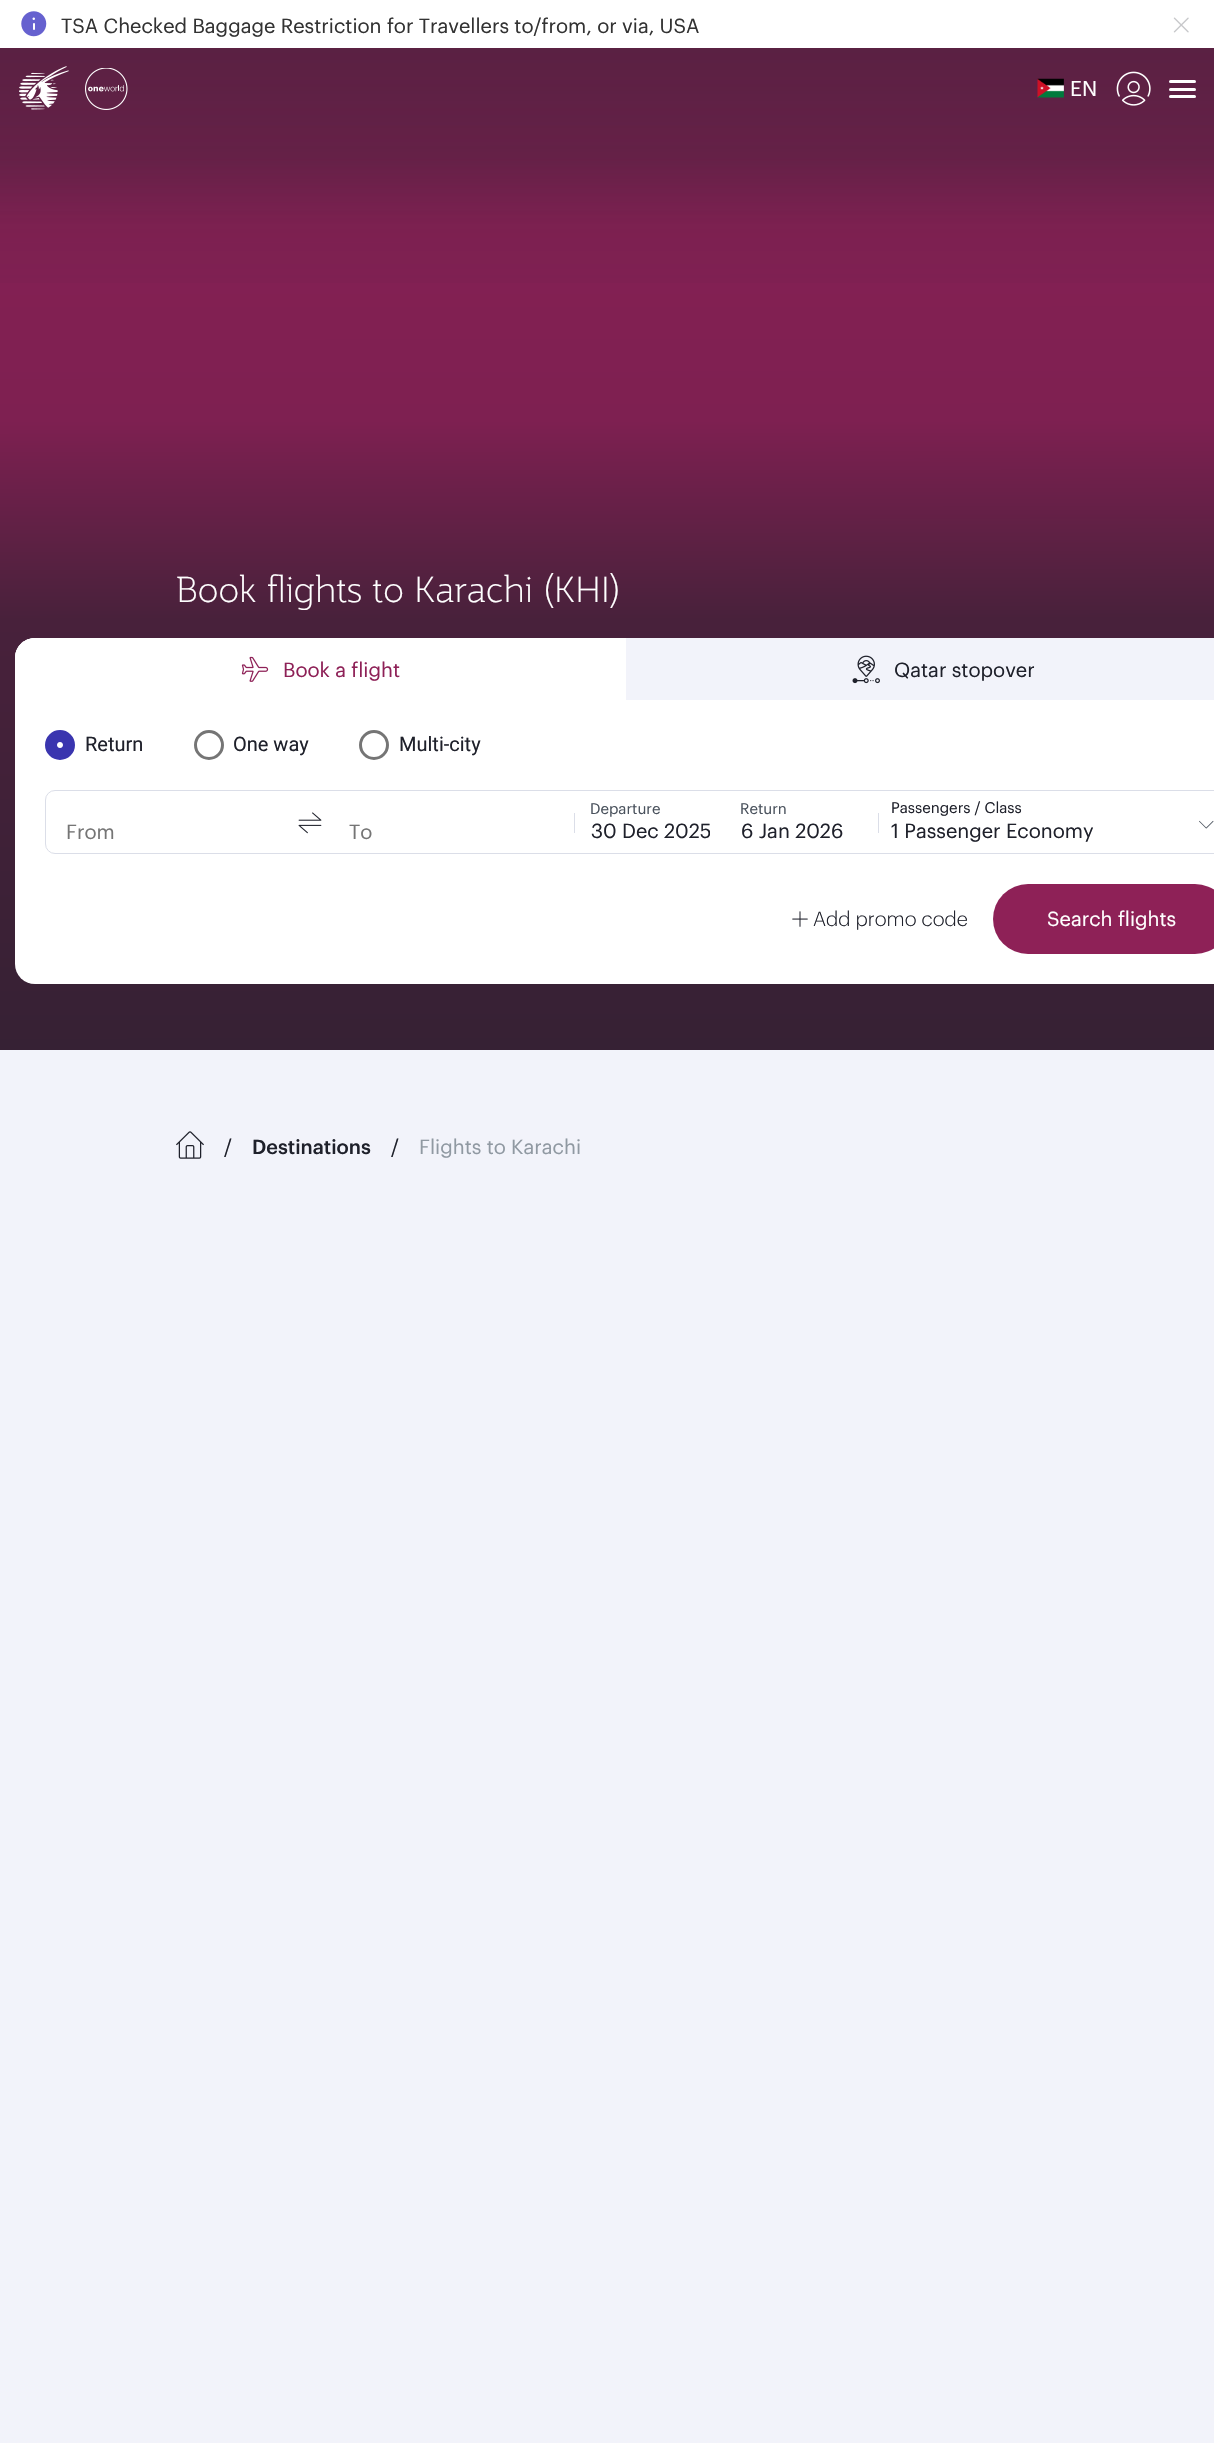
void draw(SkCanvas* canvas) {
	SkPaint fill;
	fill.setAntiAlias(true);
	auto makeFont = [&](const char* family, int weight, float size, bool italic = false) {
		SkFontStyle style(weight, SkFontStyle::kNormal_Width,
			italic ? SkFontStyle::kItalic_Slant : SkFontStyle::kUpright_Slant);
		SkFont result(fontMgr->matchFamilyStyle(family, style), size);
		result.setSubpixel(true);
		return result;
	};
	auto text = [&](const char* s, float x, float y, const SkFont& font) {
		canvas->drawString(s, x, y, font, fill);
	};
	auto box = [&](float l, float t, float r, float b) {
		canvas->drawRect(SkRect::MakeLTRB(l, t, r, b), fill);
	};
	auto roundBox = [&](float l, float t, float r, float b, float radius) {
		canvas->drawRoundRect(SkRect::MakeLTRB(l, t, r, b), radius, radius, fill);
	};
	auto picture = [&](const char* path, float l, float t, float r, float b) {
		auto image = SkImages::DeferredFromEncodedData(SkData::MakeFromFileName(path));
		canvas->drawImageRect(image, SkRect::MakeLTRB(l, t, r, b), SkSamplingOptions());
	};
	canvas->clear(0xFFF2F3FA);
	fill.setColor(0xFFFFFFFF);
	box(0, 0, 1214, 48);
	picture("image0.png", 21, 11, 47, 37);
	picture("image1.png", 1173, 17, 1189, 33);
	{
		const SkColor colors[] = {0xFF8B2056, 0xFF7E2051, 0xFF48213B, 0xFF362134};
		const float stops[] = {0, 0.4f, 0.59f, 1};
		const SkPoint ends[] = {{607, 0}, {608, 1050}};
		fill.setShader(SkGradientShader::MakeLinear(ends, colors, stops, 4, SkTileMode::kClamp));
		fill.setAlpha(255);
	}
	box(0, 48, 1214, 1050);
	{
		const SkColor colors[] = {0x801F212B, 0x521F212B, 0x141F212B, 0x001F212B};
		const float stops[] = {0, 0.5f, 0.72f, 1};
		const SkPoint ends[] = {{608, 0}, {608, 315}};
		fill.setShader(SkGradientShader::MakeLinear(ends, colors, stops, 4, SkTileMode::kClamp));
		fill.setAlpha(255);
	}
	box(0, 48, 1214, 283);
	picture("image2.png", 19, 66, 69, 110);
	picture("image3.png", 85, 68, 128, 110);
	picture("image4.png", 1037, 78, 1064, 98);
	picture("image5.png", 1116, 71, 1151, 106);
	fill.setShader(nullptr);
	fill.setColor(0xFFFFFFFF);
	roundBox(1169, 80, 1196, 83, 1.5f);
	roundBox(1169, 88, 1196, 91, 1.5f);
	roundBox(1169, 95, 1196, 98, 1.5f);
	roundBox(15, 638, 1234, 984, 20);
	fill.setColor(0xFFF2F3FA);
	canvas->drawPath(SkPathBuilder().moveTo(35, 638).lineTo(1214, 638).cubicTo(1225, 638, 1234, 647, 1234, 658).lineTo(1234, 700).lineTo(15, 700).lineTo(15, 658).cubicTo(15, 647, 24, 638, 35, 638).close().detach(), fill);
	fill.setColor(0xFFFFFFFF);
	canvas->drawPath(SkPathBuilder().moveTo(35, 638).lineTo(626, 638).lineTo(626, 701).lineTo(15, 701).lineTo(15, 658).cubicTo(15, 647, 24, 638, 35, 638).close().detach(), fill);
	picture("image6.png", 241, 656, 269, 682);
	picture("image7.png", 852, 655, 880, 684);
	fill.setColor(0xFF3A35AF);
	canvas->drawCircle(60, 745, 13.5f, fill);
	fill.setStyle(SkPaint::kStroke_Style);
	fill.setStrokeWidth(3);
	canvas->drawCircle(60, 745, 13.5f, fill);
	fill.setStyle(SkPaint::kFill_Style);
	fill.setColor(0xFFFFFFFF);
	canvas->drawPath(SkPathBuilder().moveTo(60, 748).cubicTo(56, 748, 56, 742, 60, 742).cubicTo(64, 742, 64, 748, 60, 748).close().detach(), fill);
	fill.setStyle(SkPaint::kStroke_Style);
	fill.setColor(0xFF757575);
	canvas->drawCircle(209, 745, 13.5f, fill);
	canvas->drawCircle(374, 745, 13.5f, fill);
	fill.setStrokeWidth(1);
	fill.setColor(0xFFDBDEE8);
	canvas->drawRoundRect(SkRect::MakeLTRB(45.5f, 790.5f, 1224.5f, 853.5f), 9.5f, 9.5f, fill);
	picture("image8.png", 298, 812, 322, 834);
	fill.setStyle(SkPaint::kFill_Style);
	box(574, 813, 575, 833);
	box(878, 813, 879, 833);
	picture("image9.png", 1199, 820, 1214, 829);
	picture("image10.png", 792, 911, 808, 927);
	fill.setColor(0xFF8E2157);
	roundBox(993, 884, 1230, 954, 35);
	picture("image11.png", 176, 1131, 204, 1159);
	auto font1 = makeFont("Graphik", 400, 20);
	fill.setColor(0xFF333333);
	text("TSA Checked Baggage Restriction for Travellers to/from, or via, USA", 61, 33, font1);
	auto font2 = makeFont("Graphik", 400, 21);
	fill.setColor(0xFFFFFFFF);
	text("EN", 1070, 96, font2);
	auto font3 = makeFont("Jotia", 100, 35);
	text("Book flights to Karachi (KHI)", 176, 602, font3);
	fill.setColor(0xFF8E2157);
	text("Book a flight", 283, 677, font1);
	fill.setColor(0xFF1F212B);
	text("Qatar stopover", 894, 677, font1);
	auto font4 = makeFont("Roboto", 400, 20);
	text("Return", 85, 751, font4);
	text("One way", 233, 751, font4);
	text("Multi-city", 399, 751, font4);
	fill.setColor(0xFF757575);
	text("From", 66, 839, font1);
	text("To", 349, 839, font1);
	auto font5 = makeFont("Graphik", 400, 15);
	fill.setColor(0xFF4A525D);
	text("Departure", 590, 814, font5);
	canvas->save();
	canvas->clipRect(SkRect::MakeLTRB(591, 818, 710, 841));
	fill.setColor(0xFF1F212B);
	text("30 Dec 2025", 591, 838, font1);
	canvas->restore();
	fill.setColor(0xFF4A525D);
	text("Return", 740, 814, font5);
	fill.setColor(0xFF1F212B);
	text("6 Jan 2026", 741, 838, font1);
	text("Passengers / Class", 891, 813, font5);
	text("1 Passenger Economy", 891, 838, font1);
	auto font6 = makeFont("Graphik", 300, 20);
	text("Add promo code", 813, 926, font6);
	fill.setColor(0xFFFFFFFF);
	text("Search flights", 1047, 926, font1);
	fill.setColor(0xFF1F212B);
	text("/", 224, 1154, font1);
	auto font7 = makeFont("Graphik", 500, 20);
	text("Destinations", 252, 1154, font7);
	text("/", 391, 1154, font1);
	fill.setColor(0xFF9099A2);
	text("Flights to Karachi", 419, 1154, font1);
}
